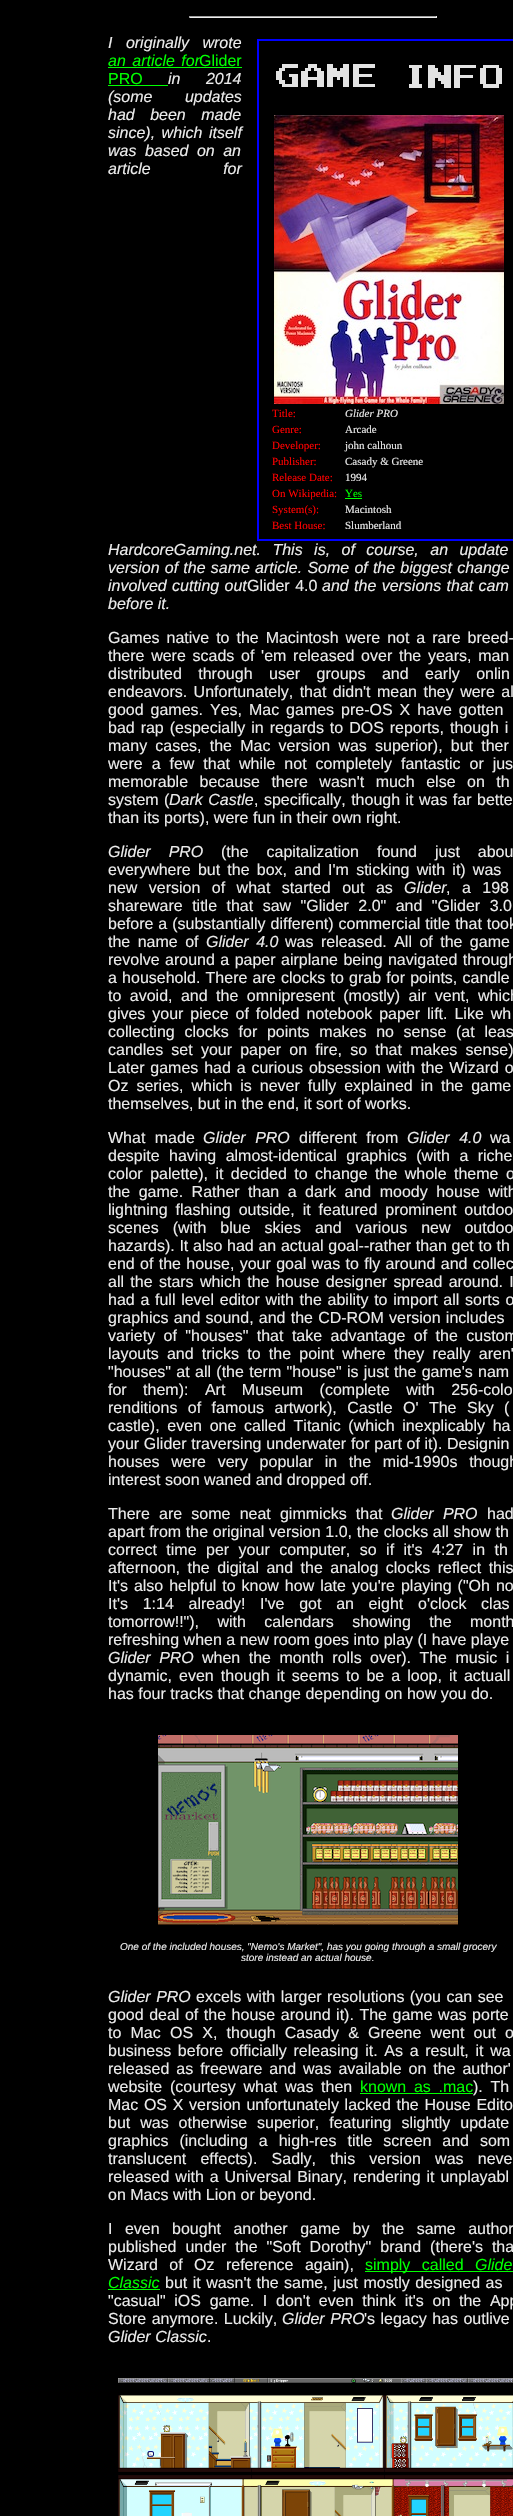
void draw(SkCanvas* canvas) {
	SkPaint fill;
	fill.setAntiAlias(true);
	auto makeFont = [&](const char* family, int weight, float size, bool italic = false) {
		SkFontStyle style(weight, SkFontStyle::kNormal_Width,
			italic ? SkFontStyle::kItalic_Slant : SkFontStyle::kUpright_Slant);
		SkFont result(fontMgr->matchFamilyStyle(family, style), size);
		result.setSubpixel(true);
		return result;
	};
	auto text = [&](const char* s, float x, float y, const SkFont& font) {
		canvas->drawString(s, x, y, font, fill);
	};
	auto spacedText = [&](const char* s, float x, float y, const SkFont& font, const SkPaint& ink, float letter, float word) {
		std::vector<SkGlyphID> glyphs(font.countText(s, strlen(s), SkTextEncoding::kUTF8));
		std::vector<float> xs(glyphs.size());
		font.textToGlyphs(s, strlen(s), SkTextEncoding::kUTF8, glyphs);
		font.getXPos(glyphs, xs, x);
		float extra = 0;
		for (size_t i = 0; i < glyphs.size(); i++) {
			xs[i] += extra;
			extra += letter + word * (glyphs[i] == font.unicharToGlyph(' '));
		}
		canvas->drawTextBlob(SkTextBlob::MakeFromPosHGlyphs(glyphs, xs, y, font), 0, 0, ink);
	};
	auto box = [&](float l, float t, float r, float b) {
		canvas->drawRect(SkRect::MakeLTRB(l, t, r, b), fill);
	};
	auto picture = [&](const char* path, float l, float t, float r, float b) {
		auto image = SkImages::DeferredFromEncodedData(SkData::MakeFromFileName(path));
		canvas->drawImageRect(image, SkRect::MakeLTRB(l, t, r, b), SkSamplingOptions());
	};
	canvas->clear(0xFF000000);
	fill.setColor(0xFF9F9F9F);
	box(189, 16, 437, 17);
	fill.setColor(0xFFEEEEEE);
	box(436, 16, 437, 18);
	box(189, 17, 437, 18);
	fill.setColor(0xFF9F9F9F);
	box(189, 16, 190, 18);
	fill.setColor(0xFF00FF00);
	box(108, 67, 242, 68);
	box(108, 85, 168, 86);
	fill.setStyle(SkPaint::kStroke_Style);
	fill.setStrokeWidth(2);
	fill.setColor(0xFF0000FF);
	canvas->drawRect(SkRect::MakeLTRB(258, 40, 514, 540), fill);
	picture("image0.png", 276, 64, 502, 88);
	picture("image1.png", 274, 115, 504, 404);
	fill.setStyle(SkPaint::kFill_Style);
	fill.setColor(0xFF00FF00);
	box(345, 498, 362, 499);
	picture("image2.png", 158, 1735, 458, 1925);
	box(360, 2093, 473, 2094);
	box(365, 2271, 513, 2272);
	box(108, 2289, 160, 2290);
	picture("image3.png", 118, 2378, 513, 2516);
	auto font1 = makeFont("Liberation Sans", 400, 16, true);
	fill.setColor(0xFFEBEBEB);
	spacedText("I originally wrote", 108, 48, font1, fill, 0, 9);
	fill.setColor(0xFF00FF00);
	spacedText("an article for", 108, 66, font1, fill, 0, 2);
	auto font2 = makeFont("Liberation Sans", 400, 16);
	text("Glider", 199, 66, font2);
	text("PRO", 108, 84, font2);
	fill.setColor(0xFFEBEBEB);
	spacedText("in 2014", 168, 84, font1, fill, 0, 21);
	spacedText("(some updates", 108, 102, font1, fill, 0, 28);
	spacedText("had been made", 108, 120, font1, fill, 0, 11);
	spacedText("since), which itself", 108, 138, font1, fill, 0, 2);
	spacedText("was based on an", 108, 156, font1, fill, 0, 4);
	spacedText("article for", 108, 174, font1, fill, 0, 68);
	spacedText("HardcoreGaming.net. This is, of course, an update", 108, 555, font1, fill, 0, 7);
	spacedText("version of the same article. Some of the biggest change", 108, 573, font1, fill, 0, 0.75f);
	spacedText("involved cutting out", 108, 591, font1, fill, 0, 0.9f);
	spacedText("Glider 4.0", 247, 591, font2, fill, 0, 1);
	spacedText("and the versions that cam", 322, 591, font1, fill, 0, 0.9f);
	text("before it.", 108, 609, font1);
	auto font3 = makeFont("Liberation Serif", 400, 11);
	fill.setColor(0xFFFF0000);
	text("Title:", 272, 417, font3);
	auto font4 = makeFont("Liberation Serif", 400, 11, true);
	fill.setColor(0xFFEBEBEB);
	text("Glider PRO", 345, 417, font4);
	fill.setColor(0xFFFF0000);
	text("Genre:", 272, 433, font3);
	fill.setColor(0xFFEBEBEB);
	text("Arcade", 345, 433, font3);
	fill.setColor(0xFFFF0000);
	text("Developer:", 272, 449, font3);
	fill.setColor(0xFFEBEBEB);
	text("john calhoun", 345, 449, font3);
	fill.setColor(0xFFFF0000);
	text("Publisher:", 272, 465, font3);
	fill.setColor(0xFFEBEBEB);
	text("Casady & Greene", 345, 465, font3);
	fill.setColor(0xFFFF0000);
	text("Release Date:", 272, 481, font3);
	fill.setColor(0xFFEBEBEB);
	text("1994", 345, 481, font3);
	fill.setColor(0xFFFF0000);
	text("On Wikipedia:", 272, 497, font3);
	fill.setColor(0xFF00FF00);
	text("Yes", 345, 497, font3);
	fill.setColor(0xFFFF0000);
	text("System(s):", 272, 513, font3);
	fill.setColor(0xFFEBEBEB);
	text("Macintosh", 345, 513, font3);
	fill.setColor(0xFFFF0000);
	text("Best House:", 272, 529, font3);
	fill.setColor(0xFFEBEBEB);
	text("Slumberland", 345, 529, font3);
	spacedText("Games native to the Macintosh were not a rare breed-", 108, 643, font2, fill, 0, 2.5f);
	spacedText("there were scads of 'em released over the years, man", 108, 661, font2, fill, 0, 2.25f);
	spacedText("distributed through user groups and early onlin", 108, 679, font2, fill, 0, 12);
	spacedText("endeavors. Unfortunately, that didn't mean they were al", 108, 697, font2, fill, 0, 2);
	spacedText("good games. Yes, Mac games pre-OS X have gotten", 108, 715, font2, fill, 0, 2.5f);
	spacedText("bad rap (especially in regards to DOS reports, though i", 108, 733, font2, fill, 0, 1.5f);
	spacedText("many cases, the Mac version was superior), but ther", 108, 751, font2, fill, 0, 3.75f);
	spacedText("were a few that while not completely fantastic or jus", 108, 769, font2, fill, 0, 4.5f);
	spacedText("memorable because there wasn't much else on th", 108, 787, font2, fill, 0, 7);
	spacedText("system (", 108, 805, font2, fill, 0, 1);
	spacedText("Dark Castle", 169, 805, font1, fill, 0, 1);
	spacedText(", specifically, though it was far bette", 254, 805, font2, fill, 0, 1);
	text("than its ports), were fun in their own right.", 108, 823, font2);
	spacedText("Glider PRO", 108, 857, font1, fill, 0, 13.5f);
	spacedText("(the capitalization found just abou", 221, 857, font2, fill, 0, 13.5f);
	spacedText("everywhere but the box, and I'm sticking with it) was", 108, 875, font2, fill, 0, 2.75f);
	spacedText("new version of what started out as", 108, 893, font2, fill, 0, 7);
	text("Glider", 404, 893, font1);
	spacedText(", a 198", 446, 893, font2, fill, 0, 7);
	spacedText("shareware title that saw \"Glider 2.0\" and \"Glider 3.0", 108, 911, font2, fill, 0, 5);
	spacedText("before a (substantially different) commercial title that took", 108, 929, font2, fill, 0, 0.5f);
	spacedText("the name of", 108, 947, font2, fill, 0, 3);
	spacedText("Glider 4.0", 206, 947, font1, fill, 0, 3);
	spacedText("was released. All of the game", 285, 947, font2, fill, 0, 3);
	spacedText("revolve around a paper airplane being navigated through", 108, 965, font2, fill, 0, 1);
	spacedText("a household. There are clocks to grab for points, candle", 108, 983, font2, fill, 0, 0.75f);
	spacedText("to avoid, and the omnipresent (mostly) air vent, which", 108, 1001, font2, fill, 0, 4);
	spacedText("gives your piece of folded notebook paper lift. Like wh", 108, 1019, font2, fill, 0, 2.5f);
	spacedText("collecting clocks for points makes no sense (at leas", 108, 1037, font2, fill, 0, 5.25f);
	spacedText("candles set your paper on fire, so that makes sense)", 108, 1055, font2, fill, 0, 3.75f);
	spacedText("Later games had a curious obsession with the Wizard o", 108, 1073, font2, fill, 0, 1.4f);
	spacedText("Oz series, which is never fully explained in the game", 108, 1091, font2, fill, 0, 3.5f);
	text("themselves, but in the end, it sort of works.", 108, 1109, font2);
	spacedText("What made", 108, 1143, font2, fill, 0, 5);
	spacedText("Glider PRO", 203, 1143, font1, fill, 0, 5);
	spacedText("different from", 299, 1143, font2, fill, 0, 5);
	spacedText("Glider 4.0", 407, 1143, font1, fill, 0, 5);
	text("wa", 490, 1143, font2);
	spacedText("despite having almost-identical graphics (with a riche", 108, 1161, font2, fill, 0, 5);
	spacedText("color palette), it decided to change the whole theme o", 108, 1179, font2, fill, 0, 3);
	spacedText("the game. Rather than a dark and moody house with", 108, 1197, font2, fill, 0, 4);
	spacedText("lightning flashing outside, it featured prominent outdoo", 108, 1215, font2, fill, 0, 3.5f);
	spacedText("scenes (with blue skies and various new outdoo", 108, 1233, font2, fill, 0, 9.5f);
	spacedText("hazards). It also had an actual goal--rather than get to th", 108, 1251, font2, fill, 0, 0.25f);
	spacedText("end of the house, your goal was to fly around and collec", 108, 1269, font2, fill, 0, 0.9f);
	spacedText("all the stars which the house designer spread around. I", 108, 1287, font2, fill, 0, 1.9f);
	spacedText("had a full level editor with the ability to import all sorts o", 108, 1305, font2, fill, 0, 1.25f);
	spacedText("graphics and sound, and the CD-ROM version includes", 108, 1323, font2, fill, 0, 0.75f);
	spacedText("variety of \"houses\" that take advantage of the custom", 108, 1341, font2, fill, 0, 4);
	spacedText("layouts and tricks to the point where they really aren'", 108, 1359, font2, fill, 0, 3.75f);
	spacedText("\"houses\" at all (the term \"house\" is just the game's nam", 108, 1377, font2, fill, 0, 0.9f);
	spacedText("for them): Art Museum (complete with 256-colo", 108, 1395, font2, fill, 0, 12);
	spacedText("renditions of famous artwork), Castle O' The Sky (", 108, 1413, font2, fill, 0, 6);
	spacedText("castle), even one called Titanic (which inexplicably ha", 108, 1431, font2, fill, 0, 3.25f);
	spacedText("your Glider traversing underwater for part of it). Designin", 108, 1449, font2, fill, 0, 0.25f);
	spacedText("houses were very popular in the mid-1990s though", 108, 1467, font2, fill, 0, 7.25f);
	text("interest soon waned and dropped off.", 108, 1485, font2);
	spacedText("There are some neat gimmicks that", 108, 1519, font2, fill, 0, 4.75f);
	spacedText("Glider PRO", 391, 1519, font1, fill, 0, 4.75f);
	text("had", 487, 1519, font2);
	spacedText("apart from the original version 1.0, the clocks all show th", 108, 1537, font2, fill, 0, 0.25f);
	spacedText("correct time per your computer, so if it's 4:27 in th", 108, 1555, font2, fill, 0, 5);
	spacedText("afternoon, the digital and the analog clocks reflect this", 108, 1573, font2, fill, 0, 3);
	spacedText("It's also helpful to know how late you're playing (\"Oh no", 108, 1591, font2, fill, 0, 1.5f);
	spacedText("It's 1:14 already! I've got an eight o'clock clas", 108, 1609, font2, fill, 0, 10.25f);
	spacedText("tomorrow!!\"), with calendars showing the month", 108, 1627, font2, fill, 0, 14);
	text("refreshing when a new room goes into play (I have playe", 108, 1645, font2);
	spacedText("Glider PRO", 108, 1663, font1, fill, 0, 4);
	spacedText("when the month rolls over). The music i", 202, 1663, font2, fill, 0, 4);
	spacedText("dynamic, even though it seems to be a loop, it actuall", 108, 1681, font2, fill, 0, 2.6f);
	text("has four tracks that change depending on how you do.", 108, 1699, font2);
	auto font5 = makeFont("Liberation Sans", 400, 10, true);
	text("One of the included houses, \"Nemo's Market\", has you going through a small grocery", 120, 1950, font5);
	text("store instead an actual house.", 241, 1961, font5);
	spacedText("Glider PRO", 108, 2002, font1, fill, 0, 1);
	spacedText("excels with larger resolutions (you can see", 196, 2002, font2, fill, 0, 1);
	spacedText("good deal of the house around it). The game was porte", 108, 2020, font2, fill, 0, 1.1f);
	spacedText("to Mac OS X, though Casady & Greene went out o", 108, 2038, font2, fill, 0, 4.75f);
	spacedText("business before officially releasing it. As a result, it wa", 108, 2056, font2, fill, 0, 2.25f);
	spacedText("released as freeware and was available on the author'", 108, 2074, font2, fill, 0, 2.5f);
	spacedText("website (courtesy what was then", 108, 2092, font2, fill, 0, 3.25f);
	fill.setColor(0xFF00FF00);
	spacedText("known as .mac", 360, 2092, font2, fill, 0, 3.25f);
	fill.setColor(0xFFEBEBEB);
	spacedText("). Th", 473, 2092, font2, fill, 0, 3.25f);
	spacedText("Mac OS X version unfortunately lacked the House Edito", 108, 2110, font2, fill, 0, 1.25f);
	spacedText("but was otherwise superior, featuring slightly update", 108, 2128, font2, fill, 0, 5.5f);
	spacedText("graphics (including a high-res title screen and som", 108, 2146, font2, fill, 0, 6.5f);
	spacedText("translucent effects). Sadly, this version was neve", 108, 2164, font2, fill, 0, 9.75f);
	spacedText("released with a Universal Binary, rendering it unplayabl", 108, 2182, font2, fill, 0, 1.5f);
	text("on Macs with Lion or beyond.", 108, 2200, font2);
	spacedText("I even bought another game by the same author", 108, 2234, font2, fill, 0, 8);
	spacedText("published under the \"Soft Dorothy\" brand (there's tha", 108, 2252, font2, fill, 0, 4.5f);
	spacedText("Wizard of Oz reference again),", 108, 2270, font2, fill, 0, 7);
	fill.setColor(0xFF00FF00);
	spacedText("simply called", 365, 2270, font2, fill, 0, 7);
	text("Glide", 475, 2270, font1);
	text("Classic", 108, 2288, font1);
	fill.setColor(0xFFEBEBEB);
	spacedText("but it wasn't the same, just mostly designed as", 165, 2288, font2, fill, 0, 1);
	spacedText("\"casual\" iOS game. I don't even think it's on the App", 108, 2306, font2, fill, 0, 4.25f);
	spacedText("Store anymore. Luckily,", 108, 2324, font2, fill, 0, 1);
	spacedText("Glider PRO", 282, 2324, font1, fill, 0, 1);
	spacedText("'s legacy has outlive", 364, 2324, font2, fill, 0, 1);
	text("Glider Classic", 108, 2342, font1);
	text(".", 207, 2342, font2);
}
